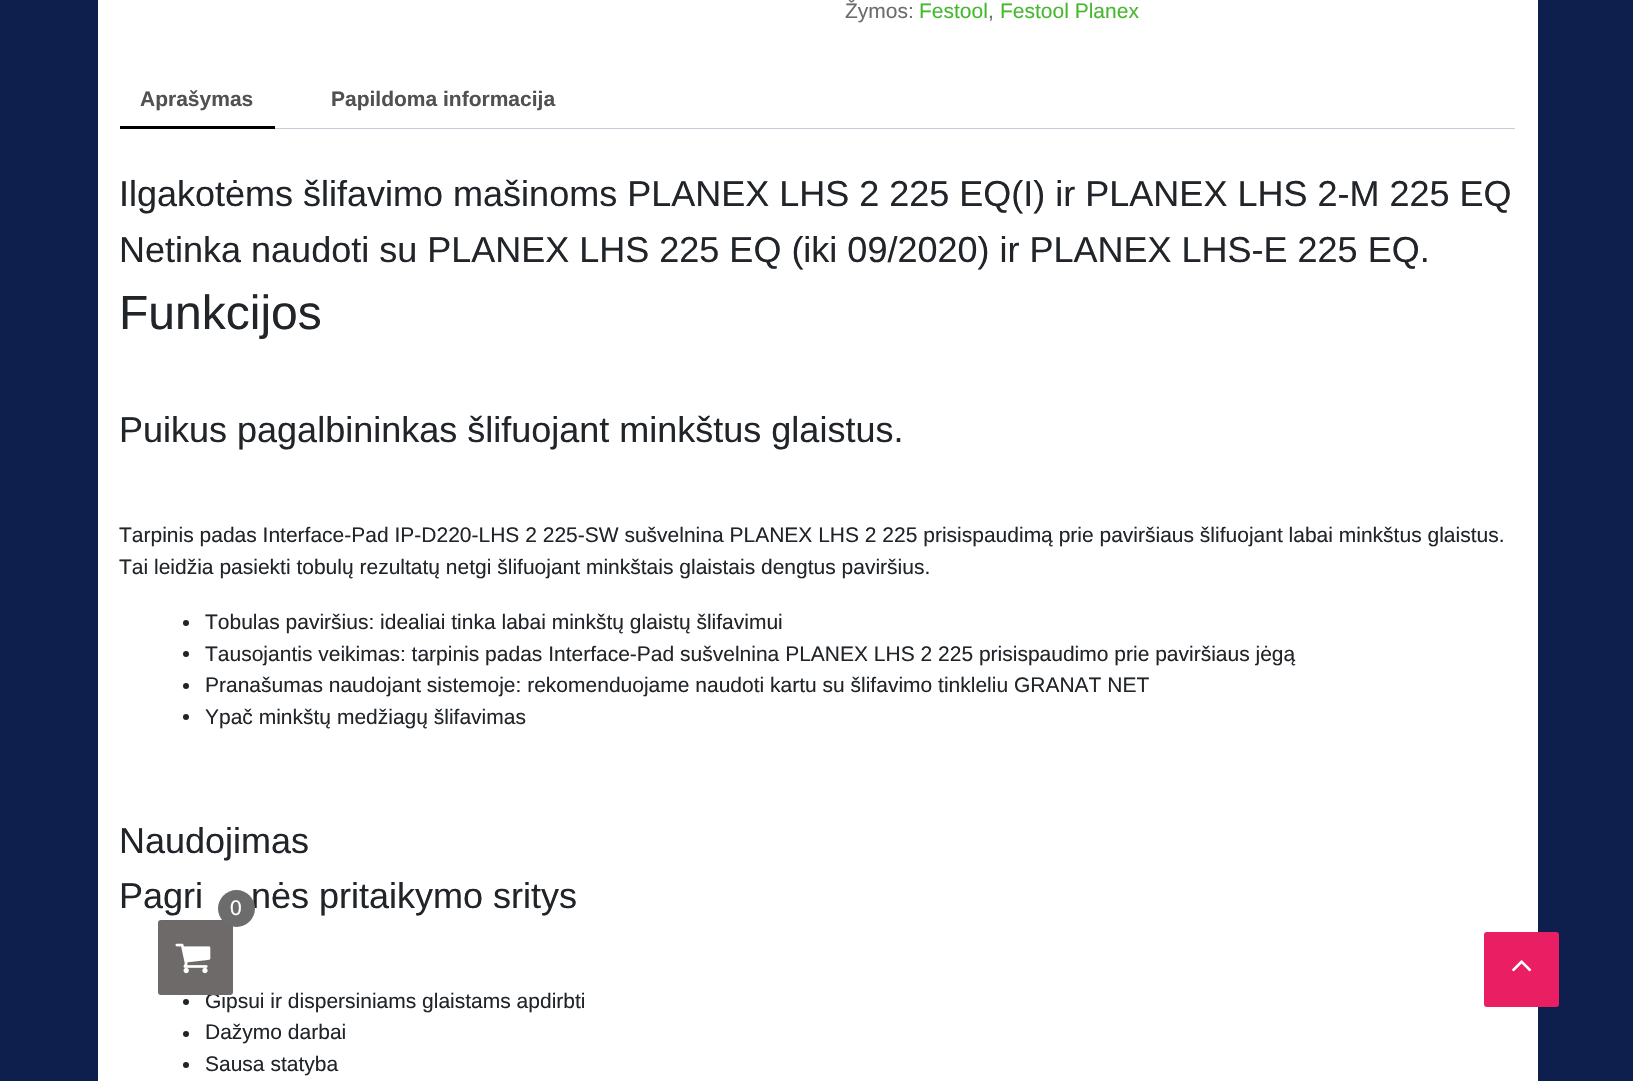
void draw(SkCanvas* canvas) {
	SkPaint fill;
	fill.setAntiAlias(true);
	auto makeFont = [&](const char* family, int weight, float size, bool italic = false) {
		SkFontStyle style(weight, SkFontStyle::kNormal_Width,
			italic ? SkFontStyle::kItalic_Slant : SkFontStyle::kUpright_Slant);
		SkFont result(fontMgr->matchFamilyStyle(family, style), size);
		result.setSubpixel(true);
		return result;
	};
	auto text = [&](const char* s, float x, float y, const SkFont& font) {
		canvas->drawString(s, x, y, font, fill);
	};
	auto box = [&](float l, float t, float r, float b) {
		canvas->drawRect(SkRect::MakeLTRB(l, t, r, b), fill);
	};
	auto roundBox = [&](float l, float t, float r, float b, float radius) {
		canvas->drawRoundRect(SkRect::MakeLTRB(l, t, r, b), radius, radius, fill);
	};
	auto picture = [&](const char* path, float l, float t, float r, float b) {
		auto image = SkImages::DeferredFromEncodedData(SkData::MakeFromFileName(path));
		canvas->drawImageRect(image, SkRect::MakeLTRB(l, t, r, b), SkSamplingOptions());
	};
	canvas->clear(0xFF0E1F4D);
	fill.setColor(0xFFFFFFFF);
	box(98, 0, 1538, 1081);
	fill.setColor(0xFF000000);
	box(120, 126, 275, 129);
	fill.setColor(0xFFCFC8D8);
	box(275, 128, 1515, 129);
	fill.setColor(0xFF212529);
	canvas->drawCircle(186, 623, 3, fill);
	canvas->drawCircle(186, 654, 3, fill);
	canvas->drawCircle(186, 686, 3, fill);
	canvas->drawCircle(186, 717, 3, fill);
	canvas->drawCircle(186, 1002, 3, fill);
	canvas->drawCircle(186, 1034, 3, fill);
	canvas->drawCircle(186, 1065, 3, fill);
	fill.setColor(0xFFE91E63);
	canvas->drawRoundRect(SkRect::MakeLTRB(1485, 933, 1558, 1006), 2, 2, fill);
	fill.setStyle(SkPaint::kStroke_Style);
	fill.setStrokeWidth(2);
	canvas->drawRoundRect(SkRect::MakeLTRB(1485, 933, 1558, 1006), 2, 2, fill);
	picture("image0.png", 1512, 960, 1532, 972);
	auto font1 = makeFont("Liberation Sans", 400, 21);
	fill.setStyle(SkPaint::kFill_Style);
	fill.setColor(0xFF6C6C6C);
	text("Žymos:", 845, 18, font1);
	fill.setColor(0xFF46B82E);
	text("Festool", 919, 18, font1);
	fill.setColor(0xFF6C6C6C);
	text(",", 988, 18, font1);
	fill.setColor(0xFF46B82E);
	text("Festool Planex", 1000, 18, font1);
	auto font2 = makeFont("Liberation Sans", 700, 21);
	fill.setColor(0xFF515151);
	text("Aprašymas", 140, 106, font2);
	text("Papildoma informacija", 331, 106, font2);
	auto font3 = makeFont("Liberation Sans", 400, 36);
	fill.setColor(0xFF212529);
	text("Ilgakotėms šlifavimo mašinoms PLANEX LHS 2 225 EQ(I) ir PLANEX LHS 2-M 225 EQ", 119, 206, font3);
	text("Netinka naudoti su PLANEX LHS 225 EQ (iki 09/2020) ir PLANEX LHS-E 225 EQ.", 119, 262, font3);
	auto font4 = makeFont("Liberation Sans", 400, 48);
	text("Funkcijos", 119, 329, font4);
	text("Puikus pagalbininkas šlifuojant minkštus glaistus.", 119, 442, font3);
	text("Tarpinis padas Interface-Pad IP-D220-LHS 2 225-SW sušvelnina PLANEX LHS 2 225 prisispaudimą prie paviršiaus šlifuojant labai minkštus glaistus.", 119, 542, font1);
	text("Tai leidžia pasiekti tobulų rezultatų netgi šlifuojant minkštais glaistais dengtus paviršius.", 119, 574, font1);
	text("Tobulas paviršius: idealiai tinka labai minkštų glaistų šlifavimui", 205, 629, font1);
	text("Tausojantis veikimas: tarpinis padas Interface-Pad sušvelnina PLANEX LHS 2 225 prisispaudimo prie paviršiaus jėgą", 205, 661, font1);
	text("Pranašumas naudojant sistemoje: rekomenduojame naudoti kartu su šlifavimo tinkleliu GRANAT NET", 205, 692, font1);
	text("Ypač minkštų medžiagų šlifavimas", 205, 724, font1);
	text("Naudojimas", 119, 853, font3);
	text("Pagri", 119, 908, font3);
	text("nės pritaikymo sritys", 251, 908, font3);
	text("Gipsui ir dispersiniams glaistams apdirbti", 205, 1008, font1);
	text("Dažymo darbai", 205, 1039, font1);
	text("Sausa statyba", 205, 1071, font1);
	fill.setColor(0xFF6E6A6A);
	roundBox(158, 920, 233, 995, 3);
	fill.setColor(0xFF6C6C6C);
	canvas->drawCircle(236.5f, 908.5f, 18.5f, fill);
	fill.setColor(0xFFFFFFFF);
	text("0", 230, 915, font1);
	picture("image1.png", 175, 943, 211, 974);
}
